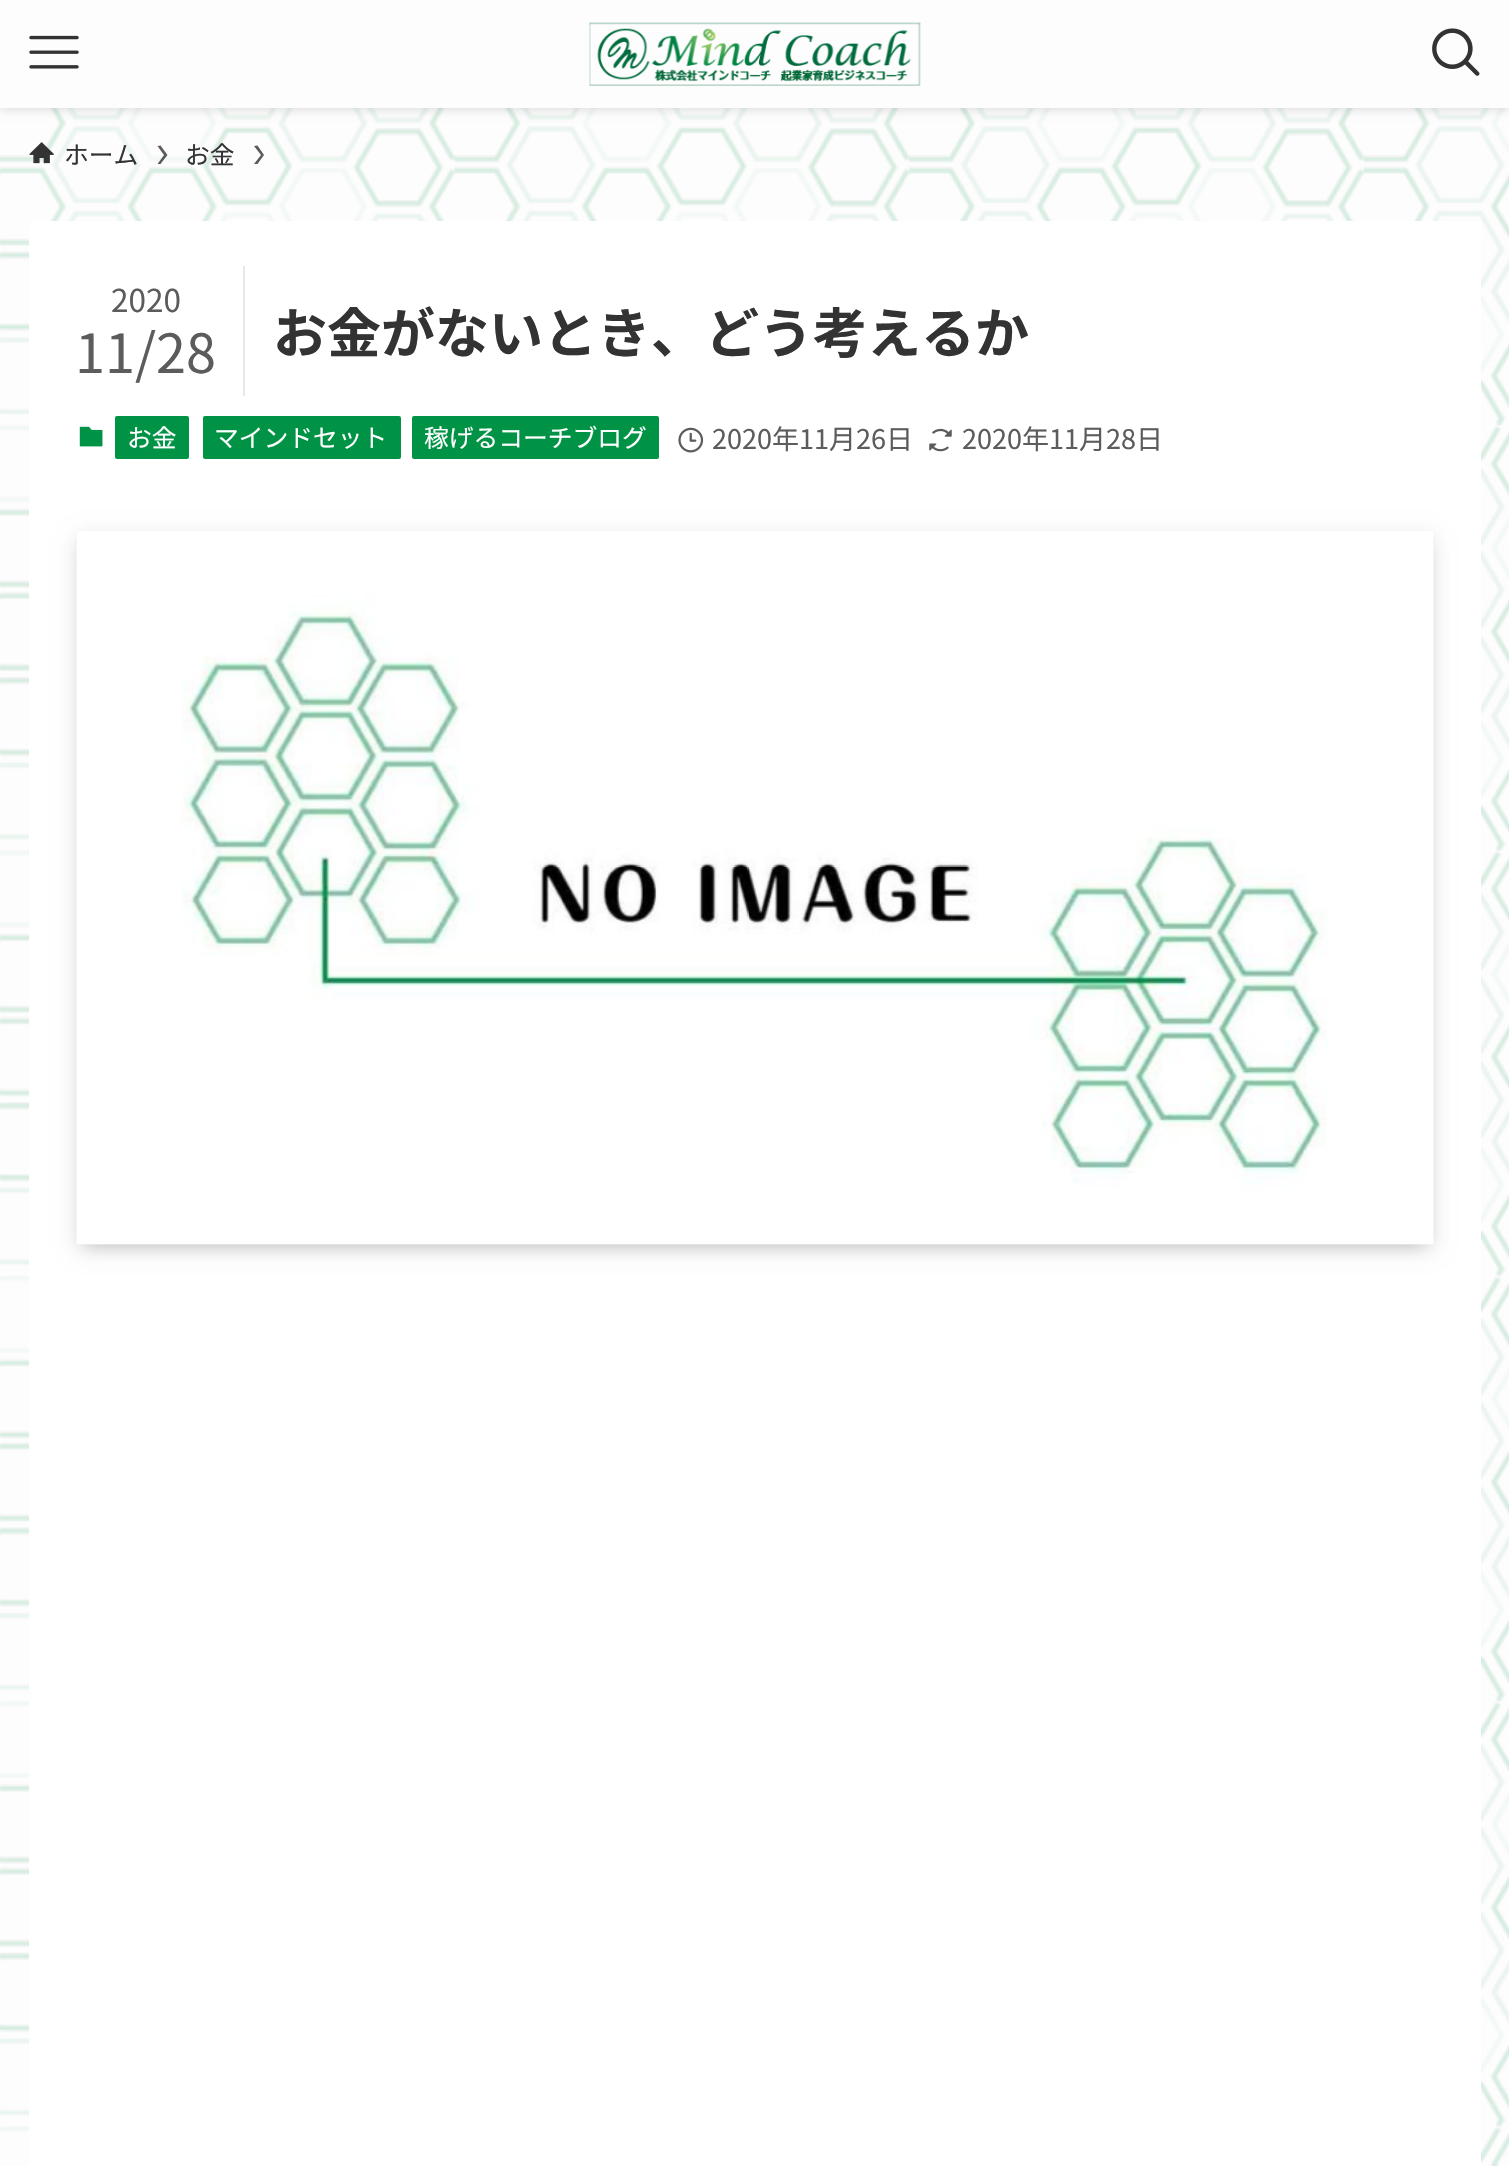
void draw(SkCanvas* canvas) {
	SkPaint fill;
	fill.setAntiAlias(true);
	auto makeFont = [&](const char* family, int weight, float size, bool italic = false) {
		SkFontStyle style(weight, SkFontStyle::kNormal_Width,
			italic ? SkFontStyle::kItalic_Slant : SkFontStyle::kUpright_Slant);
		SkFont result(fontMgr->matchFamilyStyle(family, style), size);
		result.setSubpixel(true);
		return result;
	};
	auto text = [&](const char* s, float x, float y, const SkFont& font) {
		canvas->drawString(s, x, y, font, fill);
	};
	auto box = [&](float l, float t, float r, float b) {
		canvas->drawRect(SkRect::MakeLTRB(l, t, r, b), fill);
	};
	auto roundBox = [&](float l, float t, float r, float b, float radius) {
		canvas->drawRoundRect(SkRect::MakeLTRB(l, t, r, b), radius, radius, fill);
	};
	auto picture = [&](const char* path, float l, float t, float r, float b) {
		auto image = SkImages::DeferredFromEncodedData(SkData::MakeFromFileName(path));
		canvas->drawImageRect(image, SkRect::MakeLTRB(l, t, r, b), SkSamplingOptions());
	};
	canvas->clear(0xFFFDFDFD);
	picture("image3.png", 0, 108, 1509, 2166);
	fill.setColor(0x1F000000);
	fill.setMaskFilter(SkMaskFilter::MakeBlur(kNormal_SkBlurStyle, 4.5f));
	canvas->drawRect(SkRect::MakeLTRB(0, 2, 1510, 110), fill);
	fill.setMaskFilter(nullptr);
	fill.setColor(0xFFFDFDFD);
	box(0, 0, 1509, 108);
	picture("image0.png", 29, 35, 79, 69);
	picture("image1.png", 589, 22, 921, 86);
	picture("image2.png", 1432, 28, 1480, 76);
	picture("image4.png", 29, 142, 54, 164);
	fill.setColor(0xCC333333);
	canvas->drawPath(SkPathBuilder().moveTo(160.5f, 145.5f).lineTo(157.5f, 146).lineTo(164, 155).lineTo(157.5f, 164).lineTo(160.5f, 164).lineTo(167.5f, 155).close().detach(), fill);
	fill.setColor(0xFF5B5B5B);
	canvas->drawPath(SkPathBuilder().moveTo(257.5f, 145.5f).lineTo(254, 146).lineTo(261, 155).lineTo(254, 164).lineTo(257.5f, 164).lineTo(264, 155).close().detach(), fill);
	fill.setColor(0xFFFFFFFF);
	box(29, 221, 1481, 2166);
	fill.setColor(0xFFE9E9E9);
	box(243, 266, 245, 396);
	picture("image5.png", 79, 426, 103, 447);
	fill.setColor(0xFF009245);
	roundBox(115, 416, 189, 459, 2);
	roundBox(203, 416, 401, 459, 2);
	roundBox(412, 416, 659, 459, 2);
	picture("image6.png", 678, 427, 704, 453);
	picture("image7.png", 929, 428, 952, 452);
	canvas->save();
	canvas->clipPath(SkPathBuilder(SkPathFillType::kEvenOdd).moveTo(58, 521).lineTo(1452, 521).lineTo(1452, 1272).lineTo(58, 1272).close().moveTo(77, 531).lineTo(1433, 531).lineTo(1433, 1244).lineTo(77, 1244).close().detach(), true);
	fill.setColor(0x33000000);
	fill.setMaskFilter(SkMaskFilter::MakeBlur(kNormal_SkBlurStyle, 9));
	canvas->drawRect(SkRect::MakeLTRB(86, 549, 1424, 1244), fill);
	fill.setMaskFilter(nullptr);
	canvas->restore();
	canvas->save();
	canvas->clipPath(SkPathBuilder(SkPathFillType::kEvenOdd).moveTo(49, 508).lineTo(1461, 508).lineTo(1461, 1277).lineTo(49, 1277).close().moveTo(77, 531).lineTo(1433, 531).lineTo(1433, 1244).lineTo(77, 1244).close().detach(), true);
	fill.setColor(0x1A000000);
	fill.setMaskFilter(SkMaskFilter::MakeBlur(kNormal_SkBlurStyle, 9));
	canvas->drawRect(SkRect::MakeLTRB(77, 536, 1433, 1249), fill);
	fill.setMaskFilter(nullptr);
	canvas->restore();
	picture("image8.png", 76, 544, 1434, 1245);
	auto font1 = makeFont("Noto Sans JP", 400, 24.75f);
	fill.setColor(0xFF333333);
	text("ホーム", 64, 164, font1);
	text("お金", 185, 164, font1);
	auto font2 = makeFont("Noto Sans JP", 400, 31.5f);
	fill.setColor(0xFF5C5C5C);
	text("2020", 111, 312, font2);
	auto font3 = makeFont("Noto Sans JP", 400, 54);
	text("11/28", 75, 373, font3);
	auto font4 = makeFont("Noto Sans JP", 700, 54);
	fill.setColor(0xFF333333);
	text("お金がないとき、どう考えるか", 273, 353, font4);
	fill.setColor(0xFFFFFFFF);
	text("お金", 127, 447, font1);
	text("マインドセット", 214, 447, font1);
	text("稼げるコーチブログ", 424, 447, font1);
	auto font5 = makeFont("Noto Sans JP", 400, 27);
	fill.setColor(0xFF5C5C5C);
	text("2020年11月26日", 712, 449, font5);
	text("2020年11月28日", 962, 449, font5);
}
